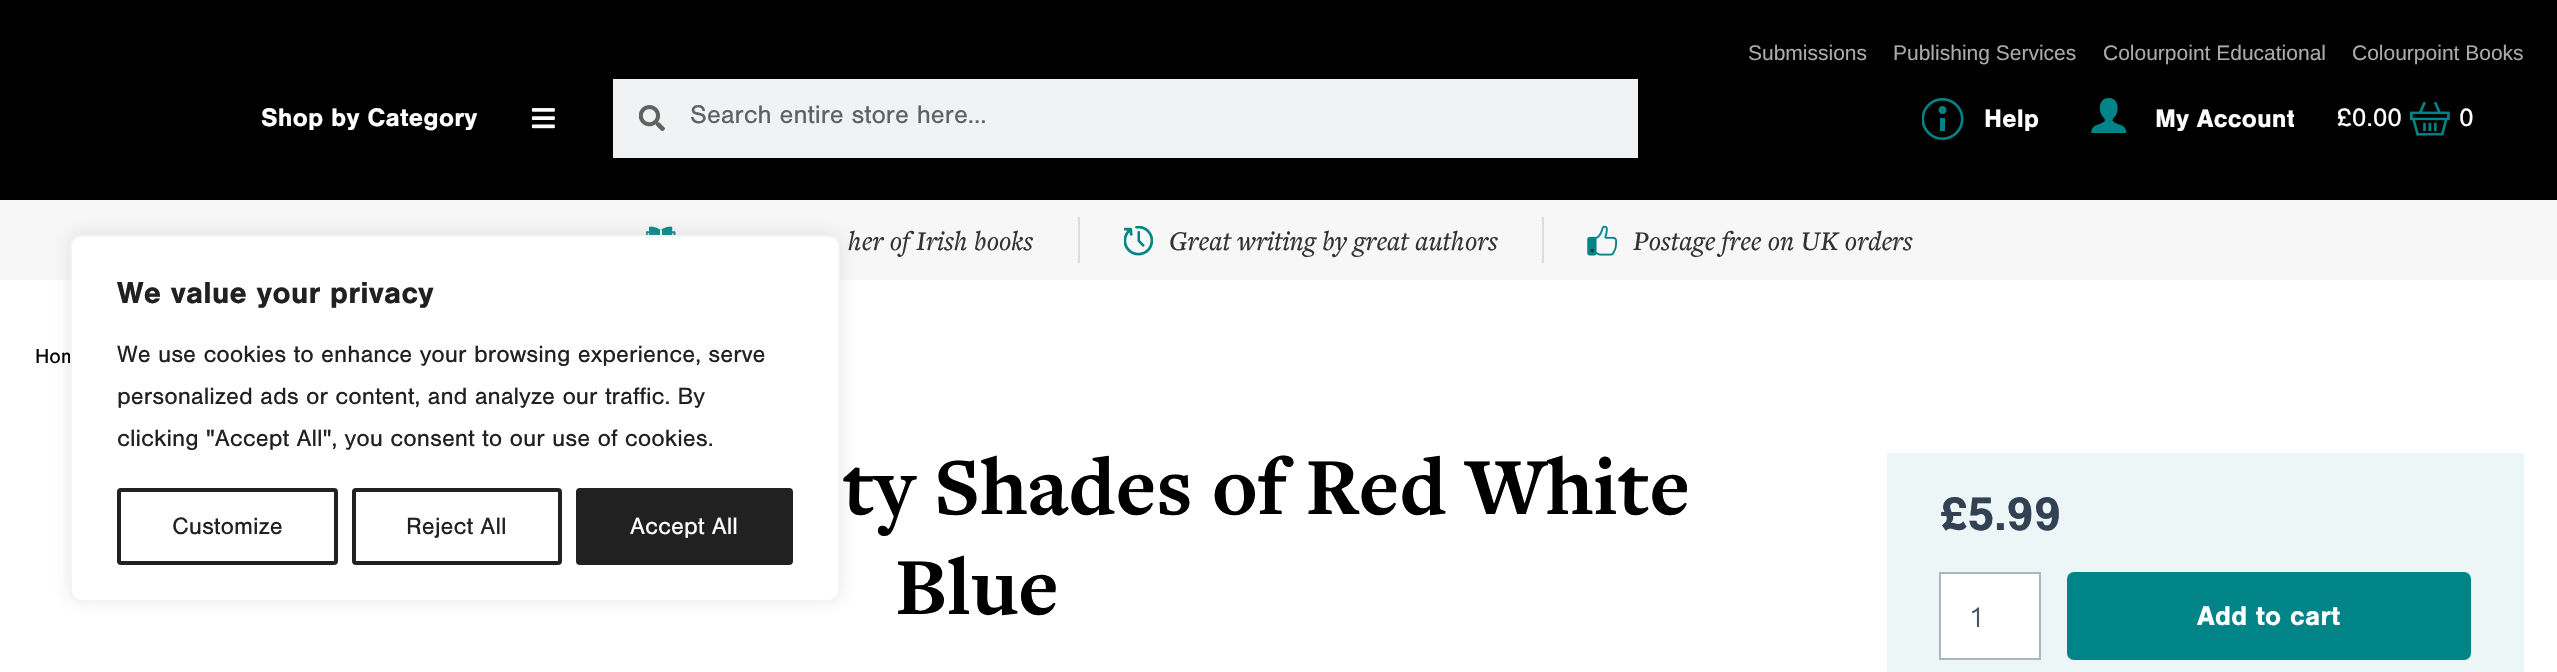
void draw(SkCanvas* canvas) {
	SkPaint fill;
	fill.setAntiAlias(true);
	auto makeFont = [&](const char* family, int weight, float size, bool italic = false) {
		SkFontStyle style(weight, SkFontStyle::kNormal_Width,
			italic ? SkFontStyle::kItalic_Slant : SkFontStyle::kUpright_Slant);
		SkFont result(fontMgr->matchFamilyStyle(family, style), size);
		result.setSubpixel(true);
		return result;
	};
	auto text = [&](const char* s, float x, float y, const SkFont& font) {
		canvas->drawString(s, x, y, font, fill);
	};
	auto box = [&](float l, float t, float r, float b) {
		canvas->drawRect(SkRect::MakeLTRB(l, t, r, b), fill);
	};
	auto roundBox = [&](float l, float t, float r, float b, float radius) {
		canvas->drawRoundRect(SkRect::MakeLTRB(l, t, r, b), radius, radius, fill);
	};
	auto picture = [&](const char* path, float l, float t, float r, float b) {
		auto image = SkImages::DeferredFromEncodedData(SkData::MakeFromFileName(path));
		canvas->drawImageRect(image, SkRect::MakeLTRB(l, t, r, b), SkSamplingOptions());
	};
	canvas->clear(0xFFFFFFFF);
	fill.setColor(0xFF000000);
	box(0, 0, 2557, 200);
	picture("image0.png", 531, 108, 555, 129);
	fill.setColor(0xFFF1F2F3);
	box(613, 79, 1638, 158);
	picture("image1.png", 639, 105, 665, 131);
	picture("image2.png", 1922, 98, 1964, 140);
	picture("image3.png", 2091, 98, 2127, 133);
	picture("image4.png", 2410, 102, 2450, 136);
	fill.setColor(0xFFF7F7F7);
	box(0, 200, 2557, 280);
	picture("image5.png", 646, 226, 676, 235);
	fill.setColor(0xFFDDDDDD);
	box(1078, 217, 1080, 263);
	picture("image6.png", 1124, 226, 1153, 256);
	box(1542, 217, 1544, 263);
	picture("image7.png", 1587, 226, 1617, 256);
	fill.setColor(0xFFEDF6F6);
	box(1887, 453, 2524, 672);
	fill.setColor(0xFFFFFFFF);
	canvas->drawRect(SkRect::MakeLTRB(1940, 573, 2040, 659), fill);
	fill.setStyle(SkPaint::kStroke_Style);
	fill.setStrokeWidth(2);
	fill.setColor(0xFFADB6BE);
	canvas->drawRect(SkRect::MakeLTRB(1940, 573, 2040, 659), fill);
	fill.setStyle(SkPaint::kFill_Style);
	fill.setColor(0xFF008488);
	roundBox(2067, 572, 2471, 660, 7);
	fill.setColor(0x4DACABAB);
	fill.setMaskFilter(SkMaskFilter::MakeBlur(kNormal_SkBlurStyle, 9));
	canvas->drawRoundRect(SkRect::MakeLTRB(70, 233, 840, 600), 11, 11, fill);
	fill.setMaskFilter(nullptr);
	auto font1 = makeFont("Liberation Sans", 400, 21);
	fill.setColor(0xFFABABAB);
	text("Submissions", 1748, 60, font1);
	text("Publishing Services", 1893, 60, font1);
	text("Colourpoint Educational", 2103, 60, font1);
	text("Colourpoint Books", 2352, 60, font1);
	auto font2 = makeFont("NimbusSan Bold", 700, 26.25f);
	fill.setColor(0xFFFFFFFF);
	text("Shop by Category", 261, 126, font2);
	auto font3 = makeFont("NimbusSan", 400, 26.25f);
	fill.setColor(0xFF606161);
	text("Search entire store here...", 690, 123, font3);
	fill.setColor(0xFFFFFFFF);
	text("Help", 1984, 127, font2);
	canvas->save();
	canvas->clipRect(SkRect::MakeLTRB(1922, 95, 2294, 142));
	text("My Account", 2155, 127, font2);
	canvas->restore();
	text("£0.00", 2337, 126, font3);
	text("0", 2459, 126, font3);
	auto font4 = makeFont("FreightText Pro", 500, 28, true);
	fill.setColor(0xFF333333);
	text("her of Irish books", 848, 250, font4);
	text("Great writing by great authors", 1169, 250, font4);
	text("Postage free on UK orders", 1633, 250, font4);
	auto font5 = makeFont("NimbusSan", 400, 21);
	fill.setColor(0xFF000000);
	text("Hom", 35, 363, font5);
	auto font6 = makeFont("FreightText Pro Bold", 700, 84);
	text("ty Shades of Red White", 843, 514, font6);
	text("Blue", 895, 614, font6);
	auto font7 = makeFont("NimbusSan Bold", 700, 49);
	fill.setColor(0xFF334155);
	text("£5.99", 1939, 530, font7);
	auto font8 = makeFont("Ubuntu", 400, 28);
	fill.setColor(0xFF475569);
	text("1", 1969, 627, font8);
	auto font9 = makeFont("NimbusSan Bold", 700, 28);
	fill.setColor(0xFFFFFFFF);
	text("Add to cart", 2197, 625, font9);
	canvas->drawRoundRect(SkRect::MakeLTRB(71, 236, 839, 601), 10, 10, fill);
	fill.setStyle(SkPaint::kStroke_Style);
	fill.setColor(0xFFF4F4F4);
	canvas->drawRoundRect(SkRect::MakeLTRB(71, 236, 839, 601), 10, 10, fill);
	auto font10 = makeFont("NimbusSan Bold", 700, 31.5f);
	fill.setStyle(SkPaint::kFill_Style);
	fill.setColor(0xFF212121);
	text("We value your privacy", 117, 303, font10);
	auto font11 = makeFont("NimbusSan", 400, 24.5f);
	text("We use cookies to enhance your browsing experience, serve", 117, 362, font11);
	text("personalized ads or content, and analyze our traffic. By", 117, 404, font11);
	text("clicking \"Accept All\", you consent to our use of cookies.", 117, 446, font11);
	fill.setStyle(SkPaint::kStroke_Style);
	fill.setStrokeWidth(4);
	canvas->drawRoundRect(SkRect::MakeLTRB(119, 490, 336, 563), 2, 2, fill);
	fill.setStyle(SkPaint::kFill_Style);
	text("Customize", 172, 534, font11);
	fill.setStyle(SkPaint::kStroke_Style);
	canvas->drawRoundRect(SkRect::MakeLTRB(354, 490, 560, 563), 2, 2, fill);
	fill.setStyle(SkPaint::kFill_Style);
	text("Reject All", 406, 534, font11);
	canvas->drawRoundRect(SkRect::MakeLTRB(578, 490, 791, 563), 2, 2, fill);
	fill.setStyle(SkPaint::kStroke_Style);
	canvas->drawRoundRect(SkRect::MakeLTRB(578, 490, 791, 563), 2, 2, fill);
	fill.setStyle(SkPaint::kFill_Style);
	fill.setColor(0xFFFFFFFF);
	text("Accept All", 630, 534, font11);
}
